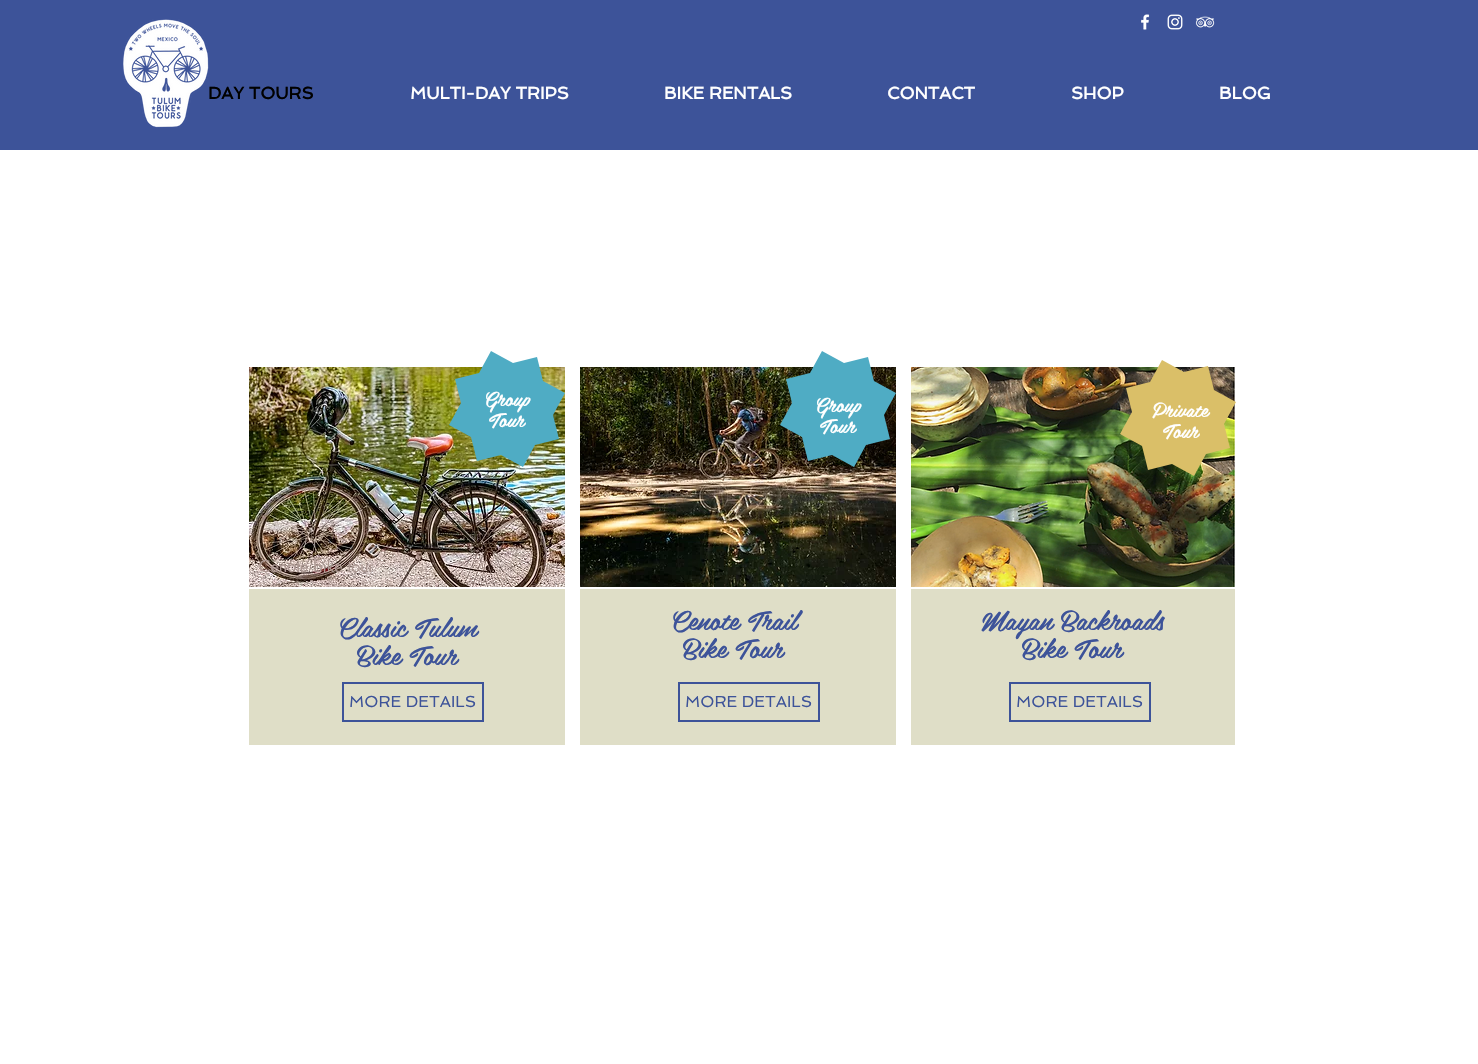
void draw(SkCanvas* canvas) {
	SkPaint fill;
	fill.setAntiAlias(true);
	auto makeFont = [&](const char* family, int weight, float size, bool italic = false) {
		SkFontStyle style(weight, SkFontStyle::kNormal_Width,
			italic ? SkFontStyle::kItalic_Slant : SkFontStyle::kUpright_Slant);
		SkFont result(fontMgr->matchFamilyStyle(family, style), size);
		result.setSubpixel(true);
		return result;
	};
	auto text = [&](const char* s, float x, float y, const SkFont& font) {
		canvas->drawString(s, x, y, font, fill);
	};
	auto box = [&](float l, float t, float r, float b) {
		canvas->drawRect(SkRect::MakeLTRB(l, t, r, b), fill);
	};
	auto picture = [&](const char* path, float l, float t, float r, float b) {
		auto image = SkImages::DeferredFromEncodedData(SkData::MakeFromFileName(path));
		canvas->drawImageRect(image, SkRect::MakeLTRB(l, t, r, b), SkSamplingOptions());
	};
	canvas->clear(0xFFFFFFFF);
	fill.setColor(0xFF3D5399);
	box(0, 0, 1478, 150);
	picture("image0.png", 123, 19, 209, 128);
	picture("image1.png", 1141, 14, 1150, 30);
	picture("image2.png", 1167, 14, 1183, 30);
	picture("image3.png", 1195, 16, 1215, 28);
	picture("image6.png", 249, 367, 565, 587);
	fill.setColor(0xFF4FACC4);
	canvas->drawPath(SkPathBuilder(SkPathFillType::kEvenOdd).moveTo(553, 415).lineTo(565, 393).lineTo(543, 381).lineTo(537, 357).lineTo(513, 363).lineTo(491, 351).lineTo(479, 373).lineTo(455, 379).lineTo(461, 403).lineTo(449, 425).lineTo(471, 437).lineTo(477, 461).lineTo(501, 455).lineTo(523, 467).lineTo(535, 445).lineTo(559, 439).close().detach(), fill);
	picture("image4.png", 580, 367, 896, 587);
	canvas->drawPath(SkPathBuilder(SkPathFillType::kEvenOdd).moveTo(884, 415).lineTo(896, 393).lineTo(874, 381).lineTo(868, 357).lineTo(844, 363).lineTo(822, 351).lineTo(810, 373).lineTo(786, 379).lineTo(792, 403).lineTo(780, 425).lineTo(802, 437).lineTo(808, 461).lineTo(832, 455).lineTo(854, 467).lineTo(866, 445).lineTo(890, 439).close().detach(), fill);
	picture("image5.png", 911, 367, 1235, 587);
	fill.setColor(0xFFDABF68);
	canvas->drawPath(SkPathBuilder(SkPathFillType::kEvenOdd).moveTo(1224, 424).lineTo(1236, 402).lineTo(1214, 390).lineTo(1208, 366).lineTo(1184, 372).lineTo(1162, 360).lineTo(1150, 382).lineTo(1126, 388).lineTo(1132, 412).lineTo(1120, 434).lineTo(1142, 446).lineTo(1148, 470).lineTo(1172, 464).lineTo(1194, 476).lineTo(1206, 454).lineTo(1230, 448).close().detach(), fill);
	fill.setColor(0xFFDFDEC7);
	box(249, 589, 565, 745);
	fill.setStyle(SkPaint::kStroke_Style);
	fill.setStrokeWidth(2);
	fill.setColor(0xFF3D5399);
	canvas->drawRect(SkRect::MakeLTRB(343, 683, 483, 721), fill);
	fill.setStyle(SkPaint::kFill_Style);
	fill.setColor(0xFFDFDEC7);
	box(580, 589, 896, 745);
	fill.setStyle(SkPaint::kStroke_Style);
	fill.setColor(0xFF3D5399);
	canvas->drawRect(SkRect::MakeLTRB(679, 683, 819, 721), fill);
	fill.setStyle(SkPaint::kFill_Style);
	fill.setColor(0xFFDFDEC7);
	box(911, 589, 1235, 745);
	fill.setStyle(SkPaint::kStroke_Style);
	fill.setColor(0xFF3D5399);
	canvas->drawRect(SkRect::MakeLTRB(1010, 683, 1150, 721), fill);
	auto font1 = makeFont("Spinnaker", 700, 17);
	fill.setStyle(SkPaint::kFill_Style);
	fill.setColor(0xFF000000);
	text("DAY TOURS", 208, 99, font1);
	fill.setColor(0xFFFFFFFF);
	text("MULTI-DAY TRIPS", 410, 99, font1);
	text("BIKE RENTALS", 664, 99, font1);
	text("CONTACT", 887, 99, font1);
	text("SHOP", 1071, 99, font1);
	text("BLOG", 1219, 99, font1);
	auto font2 = makeFont("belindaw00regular", 400, 20);
	text("Group", 484, 406, font2);
	text("Tour", 489, 427, font2);
	text("Group", 815, 412, font2);
	text("Tour", 820, 433, font2);
	text("Private", 1152, 417, font2);
	text("Tour", 1163, 438, font2);
	auto font3 = makeFont("futura", 400, 16);
	fill.setColor(0xFFAB9791);
	text("Cenote bike tour", 259, 572, font3);
	auto font4 = makeFont("Liberation Sans", 400, 12);
	fill.setColor(0xFFA79288);
	text("1/6", 538, 574, font4);
	auto font5 = makeFont("belindaw00regular", 400, 27);
	fill.setColor(0xFF3D5399);
	text("Classic Tulum", 337, 637, font5);
	text("Bike Tour", 357, 665, font5);
	auto font6 = makeFont("Spinnaker", 400, 16);
	text("MORE DETAILS", 349, 707, font6);
	text("Cenote Trail", 670, 630, font5);
	text("Bike Tour", 683, 658, font5);
	text("MORE DETAILS", 685, 707, font6);
	text("Mayan Backroads", 981, 630, font5);
	text("Bike Tour", 1022, 658, font5);
	text("MORE DETAILS", 1016, 707, font6);
}
